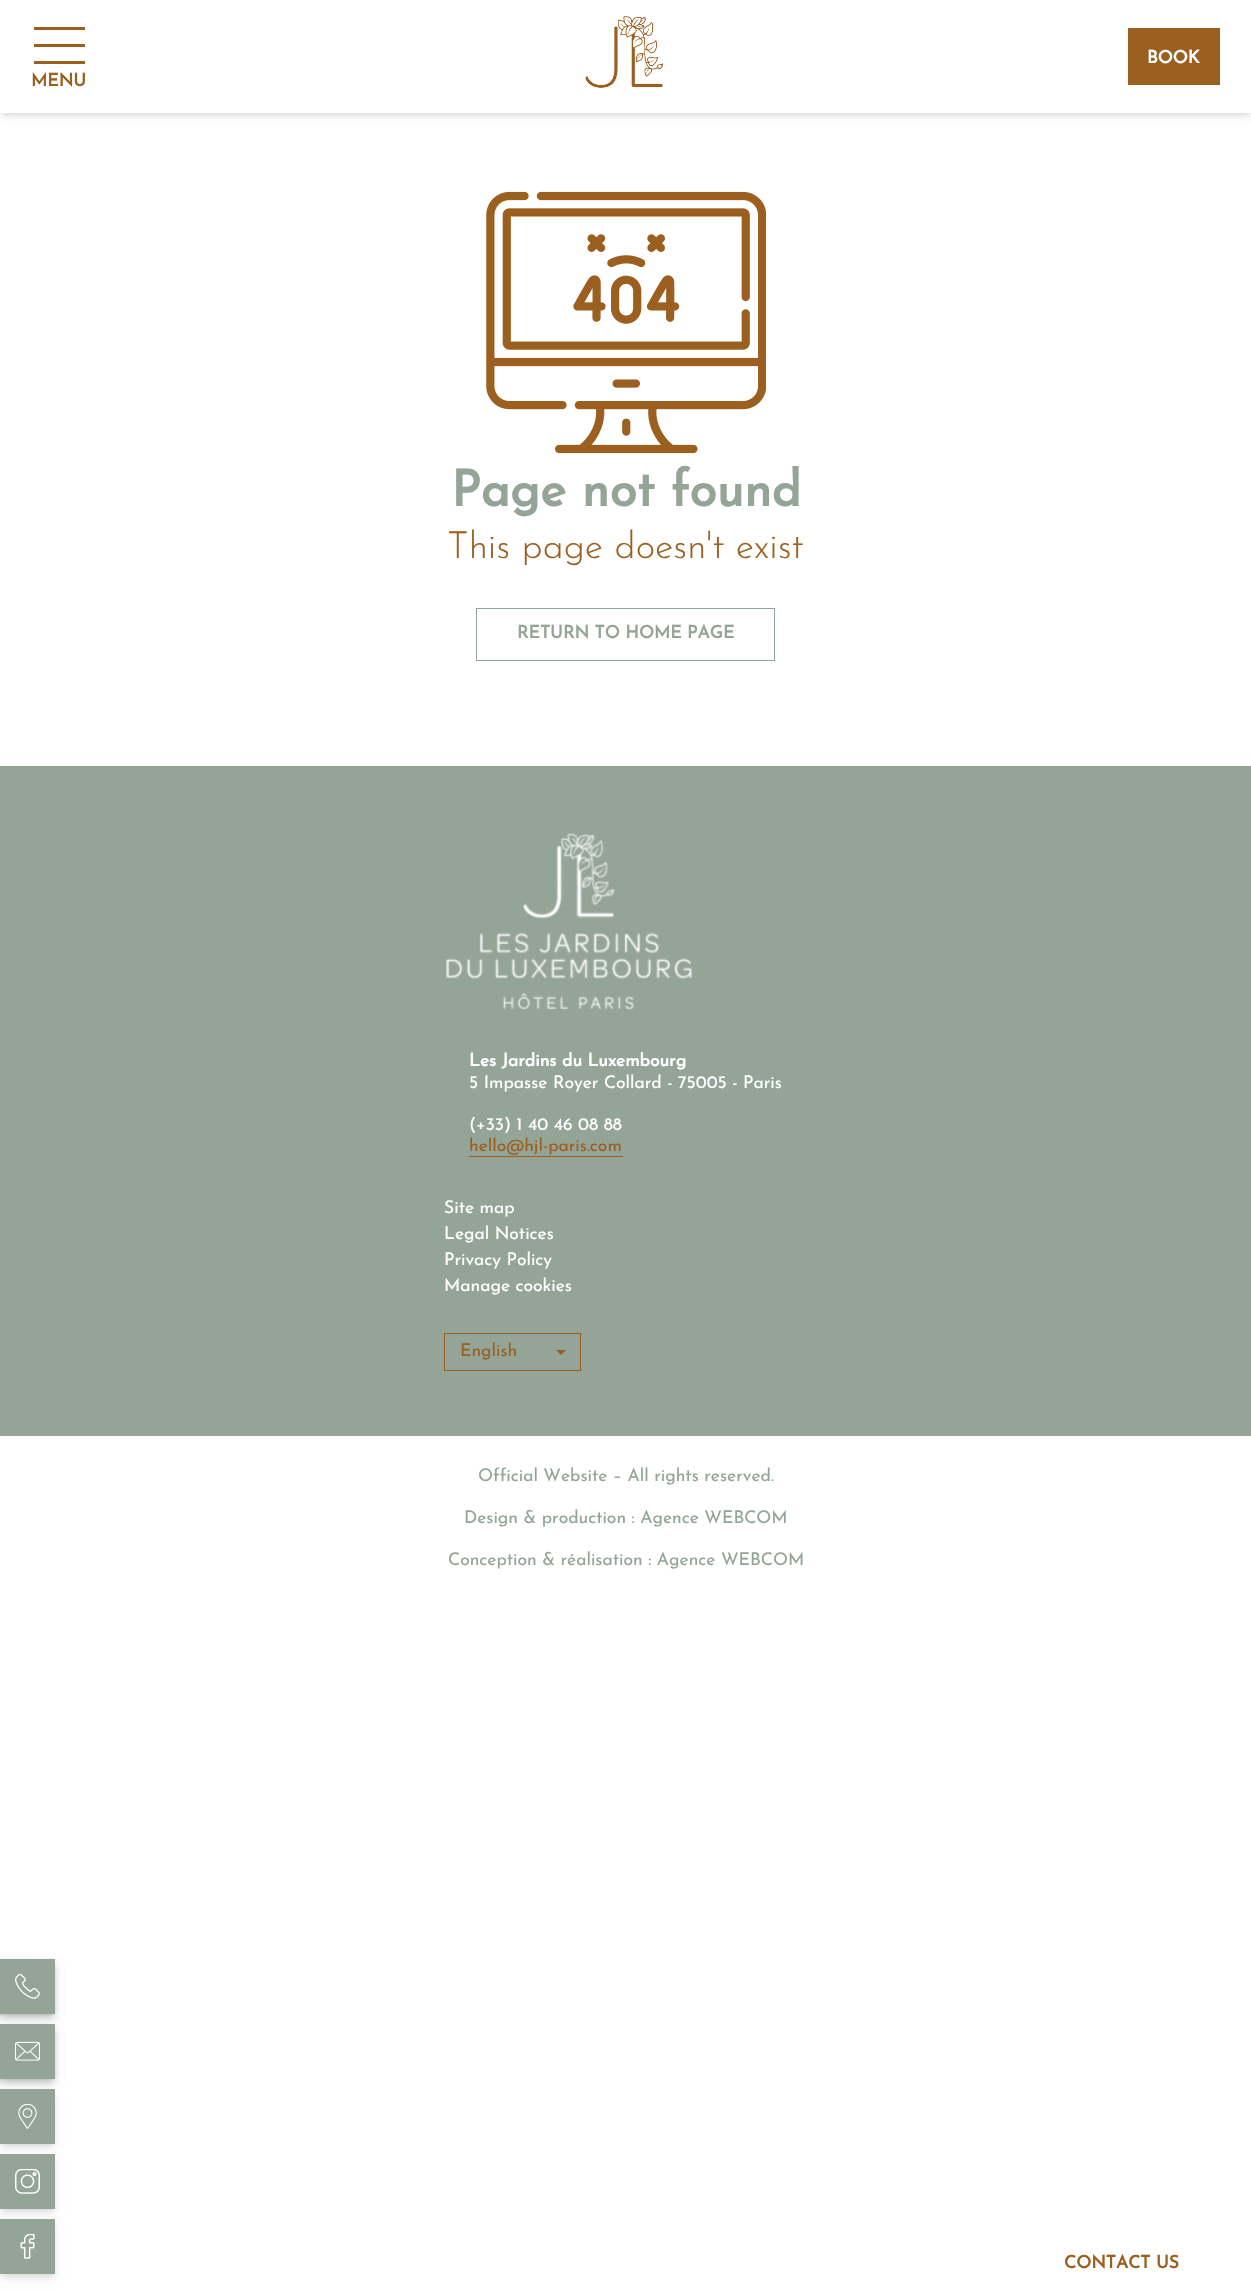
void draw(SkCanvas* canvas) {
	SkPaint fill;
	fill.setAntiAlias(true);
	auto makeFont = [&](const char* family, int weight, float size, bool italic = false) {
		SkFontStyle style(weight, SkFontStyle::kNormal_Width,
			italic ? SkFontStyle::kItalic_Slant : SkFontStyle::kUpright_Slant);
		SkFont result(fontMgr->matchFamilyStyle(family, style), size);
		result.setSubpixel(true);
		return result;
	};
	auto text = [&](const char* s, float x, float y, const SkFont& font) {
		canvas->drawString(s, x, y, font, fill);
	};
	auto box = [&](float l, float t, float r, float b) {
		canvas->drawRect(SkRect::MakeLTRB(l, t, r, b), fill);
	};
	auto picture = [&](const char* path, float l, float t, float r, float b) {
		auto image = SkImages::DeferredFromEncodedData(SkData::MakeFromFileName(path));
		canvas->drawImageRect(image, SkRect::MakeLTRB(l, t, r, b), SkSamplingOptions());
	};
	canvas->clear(0xFFFFFFFF);
	fill.setColor(0x1A000000);
	fill.setMaskFilter(SkMaskFilter::MakeBlur(kNormal_SkBlurStyle, 2.5f));
	canvas->drawRect(SkRect::MakeLTRB(3, 5, 1249, 113), fill);
	fill.setMaskFilter(nullptr);
	fill.setMaskFilter(SkMaskFilter::MakeBlur(kNormal_SkBlurStyle, 4));
	canvas->drawRect(SkRect::MakeLTRB(1, 6, 1250, 116), fill);
	fill.setMaskFilter(nullptr);
	fill.setColor(0xFFFFFFFF);
	box(0, 0, 1251, 113);
	picture("image0.png", 585, 16, 663, 88);
	fill.setColor(0xFF9B5F1F);
	box(1128, 28, 1220, 85);
	box(34, 27, 85, 30);
	box(34, 44, 85, 47);
	box(34, 61, 85, 64);
	picture("image1.png", 486, 191, 766, 454);
	fill.setStyle(SkPaint::kStroke_Style);
	fill.setStrokeWidth(1);
	fill.setColor(0xFF94A497);
	canvas->drawRect(SkRect::MakeLTRB(476.5f, 608.5f, 774.5f, 660.5f), fill);
	fill.setStyle(SkPaint::kFill_Style);
	box(0, 766, 1251, 1436);
	picture("image2.png", 446, 833, 693, 1010);
	fill.setColor(0xFF9B5F1F);
	box(469, 1156, 623, 1157);
	fill.setStyle(SkPaint::kStroke_Style);
	canvas->drawRect(SkRect::MakeLTRB(444.5f, 1333.5f, 580.5f, 1370.5f), fill);
	fill.setStyle(SkPaint::kFill_Style);
	canvas->drawPath(SkPathBuilder().moveTo(556, 1350).lineTo(566, 1350).lineTo(561, 1355).close().detach(), fill);
	fill.setColor(0x1A000000);
	fill.setMaskFilter(SkMaskFilter::MakeBlur(kNormal_SkBlurStyle, 2.5f));
	canvas->drawRect(SkRect::MakeLTRB(-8, 1964, 53, 2014), fill);
	fill.setMaskFilter(nullptr);
	fill.setMaskFilter(SkMaskFilter::MakeBlur(kNormal_SkBlurStyle, 4));
	canvas->drawRect(SkRect::MakeLTRB(-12, 1965, 54, 2018), fill);
	fill.setMaskFilter(nullptr);
	fill.setMaskFilter(SkMaskFilter::MakeBlur(kNormal_SkBlurStyle, 2.5f));
	canvas->drawRect(SkRect::MakeLTRB(3, 1964, 53, 2014), fill);
	fill.setMaskFilter(nullptr);
	fill.setMaskFilter(SkMaskFilter::MakeBlur(kNormal_SkBlurStyle, 4));
	canvas->drawRect(SkRect::MakeLTRB(1, 1965, 54, 2018), fill);
	fill.setMaskFilter(nullptr);
	fill.setColor(0xFF94A497);
	box(0, 1959, 55, 2014);
	picture("image3.png", 15, 1974, 40, 1999);
	fill.setColor(0x1A000000);
	fill.setMaskFilter(SkMaskFilter::MakeBlur(kNormal_SkBlurStyle, 2.5f));
	canvas->drawRect(SkRect::MakeLTRB(-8, 2029, 53, 2079), fill);
	fill.setMaskFilter(nullptr);
	fill.setMaskFilter(SkMaskFilter::MakeBlur(kNormal_SkBlurStyle, 4));
	canvas->drawRect(SkRect::MakeLTRB(-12, 2030, 54, 2083), fill);
	fill.setMaskFilter(nullptr);
	fill.setMaskFilter(SkMaskFilter::MakeBlur(kNormal_SkBlurStyle, 2.5f));
	canvas->drawRect(SkRect::MakeLTRB(3, 2029, 53, 2079), fill);
	fill.setMaskFilter(nullptr);
	fill.setMaskFilter(SkMaskFilter::MakeBlur(kNormal_SkBlurStyle, 4));
	canvas->drawRect(SkRect::MakeLTRB(1, 2030, 54, 2083), fill);
	fill.setMaskFilter(nullptr);
	fill.setColor(0xFF94A497);
	box(0, 2024, 55, 2079);
	picture("image4.png", 15, 2041, 40, 2061);
	fill.setColor(0x1A000000);
	fill.setMaskFilter(SkMaskFilter::MakeBlur(kNormal_SkBlurStyle, 2.5f));
	canvas->drawRect(SkRect::MakeLTRB(3, 2094, 53, 2144), fill);
	fill.setMaskFilter(nullptr);
	fill.setMaskFilter(SkMaskFilter::MakeBlur(kNormal_SkBlurStyle, 4));
	canvas->drawRect(SkRect::MakeLTRB(1, 2095, 54, 2148), fill);
	fill.setMaskFilter(nullptr);
	fill.setColor(0xFF94A497);
	box(0, 2089, 55, 2144);
	picture("image5.png", 18, 2104, 37, 2129);
	fill.setColor(0x1A000000);
	fill.setMaskFilter(SkMaskFilter::MakeBlur(kNormal_SkBlurStyle, 2.5f));
	canvas->drawRect(SkRect::MakeLTRB(3, 2159, 53, 2209), fill);
	fill.setMaskFilter(nullptr);
	fill.setMaskFilter(SkMaskFilter::MakeBlur(kNormal_SkBlurStyle, 4));
	canvas->drawRect(SkRect::MakeLTRB(1, 2160, 54, 2213), fill);
	fill.setMaskFilter(nullptr);
	fill.setColor(0xFF94A497);
	box(0, 2154, 55, 2209);
	picture("image6.png", 15, 2169, 40, 2194);
	fill.setColor(0x1A000000);
	fill.setMaskFilter(SkMaskFilter::MakeBlur(kNormal_SkBlurStyle, 2.5f));
	canvas->drawRect(SkRect::MakeLTRB(3, 2224, 53, 2274), fill);
	fill.setMaskFilter(nullptr);
	fill.setMaskFilter(SkMaskFilter::MakeBlur(kNormal_SkBlurStyle, 4));
	canvas->drawRect(SkRect::MakeLTRB(1, 2225, 54, 2278), fill);
	fill.setMaskFilter(nullptr);
	fill.setColor(0xFF94A497);
	box(0, 2219, 55, 2274);
	picture("image7.png", 20, 2234, 35, 2259);
	auto font1 = makeFont("Josefin Sans", 700, 17.5f);
	fill.setColor(0xFFFFFFFF);
	text("BOOK", 1147, 63, font1);
	fill.setColor(0xFF9B5F1F);
	text("MENU", 31, 86, font1);
	auto font2 = makeFont("Josefin Sans", 700, 50);
	fill.setColor(0xFF94A497);
	text("Page not found", 451, 506, font2);
	auto font3 = makeFont("Josefin Sans", 100, 37.5f);
	fill.setColor(0xFF9B5F1F);
	text("This page doesn't exist", 447, 558, font3);
	fill.setColor(0xFF94A497);
	text("RETURN TO HOME PAGE", 517, 638, font1);
	fill.setColor(0xFFFFFFFF);
	text("Les Jardins du Luxembourg", 469, 1066, font1);
	auto font4 = makeFont("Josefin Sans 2", 100, 17.5f);
	text("5 Impasse Royer Collard - 75005 - Paris", 469, 1088, font4);
	text("(+33) 1 40 46 08 88", 469, 1130, font4);
	fill.setColor(0xFF9B5F1F);
	text("hello@hjl-paris.com", 469, 1151, font4);
	fill.setColor(0xFFFFFFFF);
	text("Site map", 444, 1213, font4);
	text("Legal Notices", 444, 1239, font4);
	text("Privacy Policy", 444, 1265, font4);
	text("Manage cookies", 444, 1291, font4);
	fill.setColor(0xFF9B5F1F);
	text("English", 460, 1356, font4);
	fill.setColor(0xFF94A497);
	text("Official Website – All rights reserved.", 478, 1481, font4);
	text("Design & production : Agence WEBCOM", 464, 1523, font4);
	text("Conception & réalisation : Agence WEBCOM", 448, 1565, font4);
	fill.setColor(0xFF9B5F1F);
	text("CONTACT US", 1064, 2268, font1);
}
